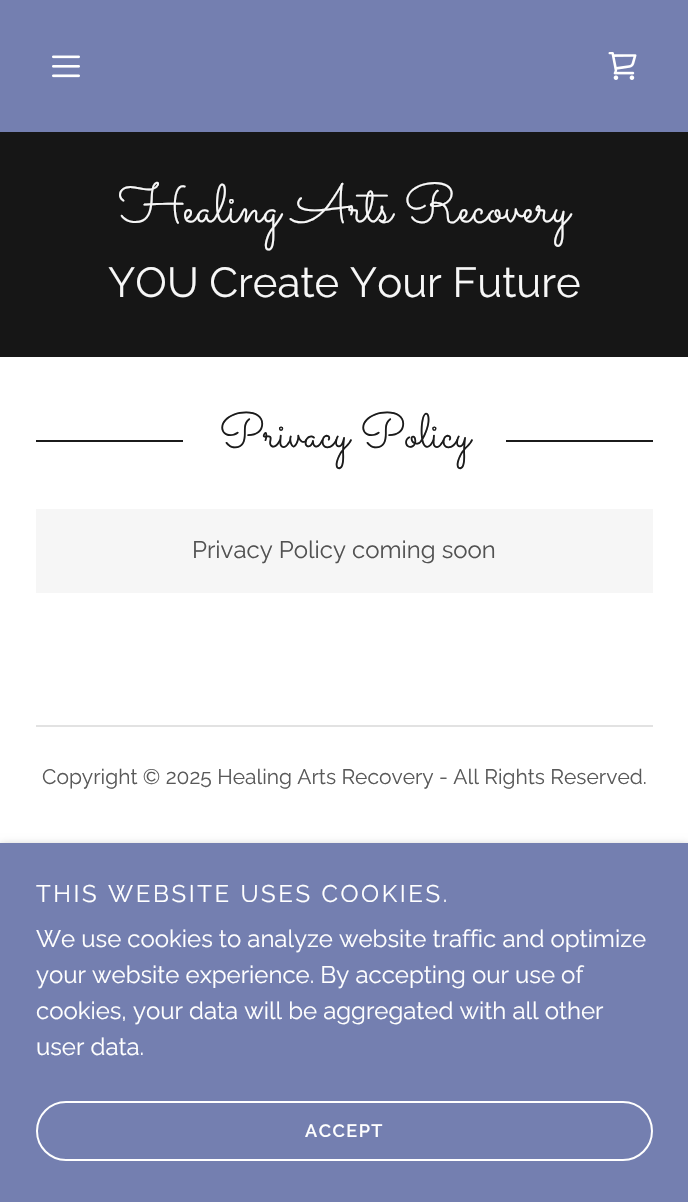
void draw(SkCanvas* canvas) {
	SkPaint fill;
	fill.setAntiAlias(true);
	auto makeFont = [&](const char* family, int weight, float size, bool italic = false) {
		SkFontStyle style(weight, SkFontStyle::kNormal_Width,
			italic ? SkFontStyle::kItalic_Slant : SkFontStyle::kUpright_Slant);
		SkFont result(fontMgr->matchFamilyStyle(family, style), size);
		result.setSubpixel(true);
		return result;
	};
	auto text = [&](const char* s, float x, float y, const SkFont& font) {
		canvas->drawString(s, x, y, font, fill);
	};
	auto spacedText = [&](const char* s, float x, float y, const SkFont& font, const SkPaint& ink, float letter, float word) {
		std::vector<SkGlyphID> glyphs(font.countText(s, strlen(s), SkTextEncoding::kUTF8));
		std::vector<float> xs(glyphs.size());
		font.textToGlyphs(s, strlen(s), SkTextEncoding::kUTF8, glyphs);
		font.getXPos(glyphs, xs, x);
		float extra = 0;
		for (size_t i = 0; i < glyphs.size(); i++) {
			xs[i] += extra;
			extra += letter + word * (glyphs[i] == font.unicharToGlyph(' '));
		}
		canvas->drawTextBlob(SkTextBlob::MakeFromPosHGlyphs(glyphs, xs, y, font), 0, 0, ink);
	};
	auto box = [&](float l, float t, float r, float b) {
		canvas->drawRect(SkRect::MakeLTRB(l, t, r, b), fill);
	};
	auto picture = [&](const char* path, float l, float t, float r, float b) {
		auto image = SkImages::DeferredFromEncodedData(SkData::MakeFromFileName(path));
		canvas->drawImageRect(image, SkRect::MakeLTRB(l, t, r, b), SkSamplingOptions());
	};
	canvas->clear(0xFFFFFFFF);
	fill.setColor(0xFF161616);
	box(0, 132, 688, 357);
	fill.setColor(0xFF747FB0);
	box(0, 0, 688, 132);
	picture("image0.png", 52, 55, 80, 78);
	picture("image1.png", 608, 52, 637, 80);
	fill.setColor(0xFF1B1B1B);
	box(36, 440, 183, 442);
	box(506, 440, 653, 442);
	fill.setColor(0xFFF6F6F6);
	box(36, 509, 653, 593);
	fill.setColor(0xFFE2E2E2);
	box(36, 725, 653, 727);
	fill.setColor(0x4D000000);
	fill.setMaskFilter(SkMaskFilter::MakeBlur(kNormal_SkBlurStyle, 4.5f));
	canvas->drawRect(SkRect::MakeLTRB(0, 846, 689, 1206), fill);
	fill.setMaskFilter(nullptr);
	fill.setColor(0xFF747FB0);
	box(0, 843, 688, 1202);
	fill.setStyle(SkPaint::kStroke_Style);
	fill.setStrokeWidth(2);
	fill.setColor(0xFFFFFFFF);
	canvas->drawRoundRect(SkRect::MakeLTRB(37, 1102, 652, 1160), 29, 29, fill);
	auto font1 = makeFont("Sacramento", 400, 54);
	fill.setStyle(SkPaint::kFill_Style);
	fill.setColor(0xFFF7F7F7);
	text("Healing Arts Recovery", 119, 222, font1);
	auto font2 = makeFont("Raleway", 400, 42);
	text("YOU Create Your Future", 108, 297, font2);
	auto font3 = makeFont("Sacramento", 400, 48);
	fill.setColor(0xFF1B1B1B);
	text("Privacy Policy", 219, 447, font3);
	auto font4 = makeFont("Raleway", 400, 24);
	fill.setColor(0xFF525252);
	text("Privacy Policy coming soon", 192, 558, font4);
	auto font5 = makeFont("Raleway", 400, 21);
	fill.setColor(0xFF595959);
	text("Copyright © 2025 Healing Arts Recovery - All Rights Reserved.", 42, 784, font5);
	fill.setColor(0xFFFFFFFF);
	spacedText("THIS WEBSITE USES COOKIES.", 36, 902, font4, fill, 2.6f, 0);
	text("We use cookies to analyze website traffic and optimize", 36, 947, font4);
	text("your website experience. By accepting our use of", 36, 983, font4);
	text("cookies, your data will be aggregated with all other", 36, 1019, font4);
	text("user data.", 36, 1055, font4);
	auto font6 = makeFont("Raleway", 600, 18);
	spacedText("ACCEPT", 305, 1137, font6, fill, 1.5f, 0);
}
